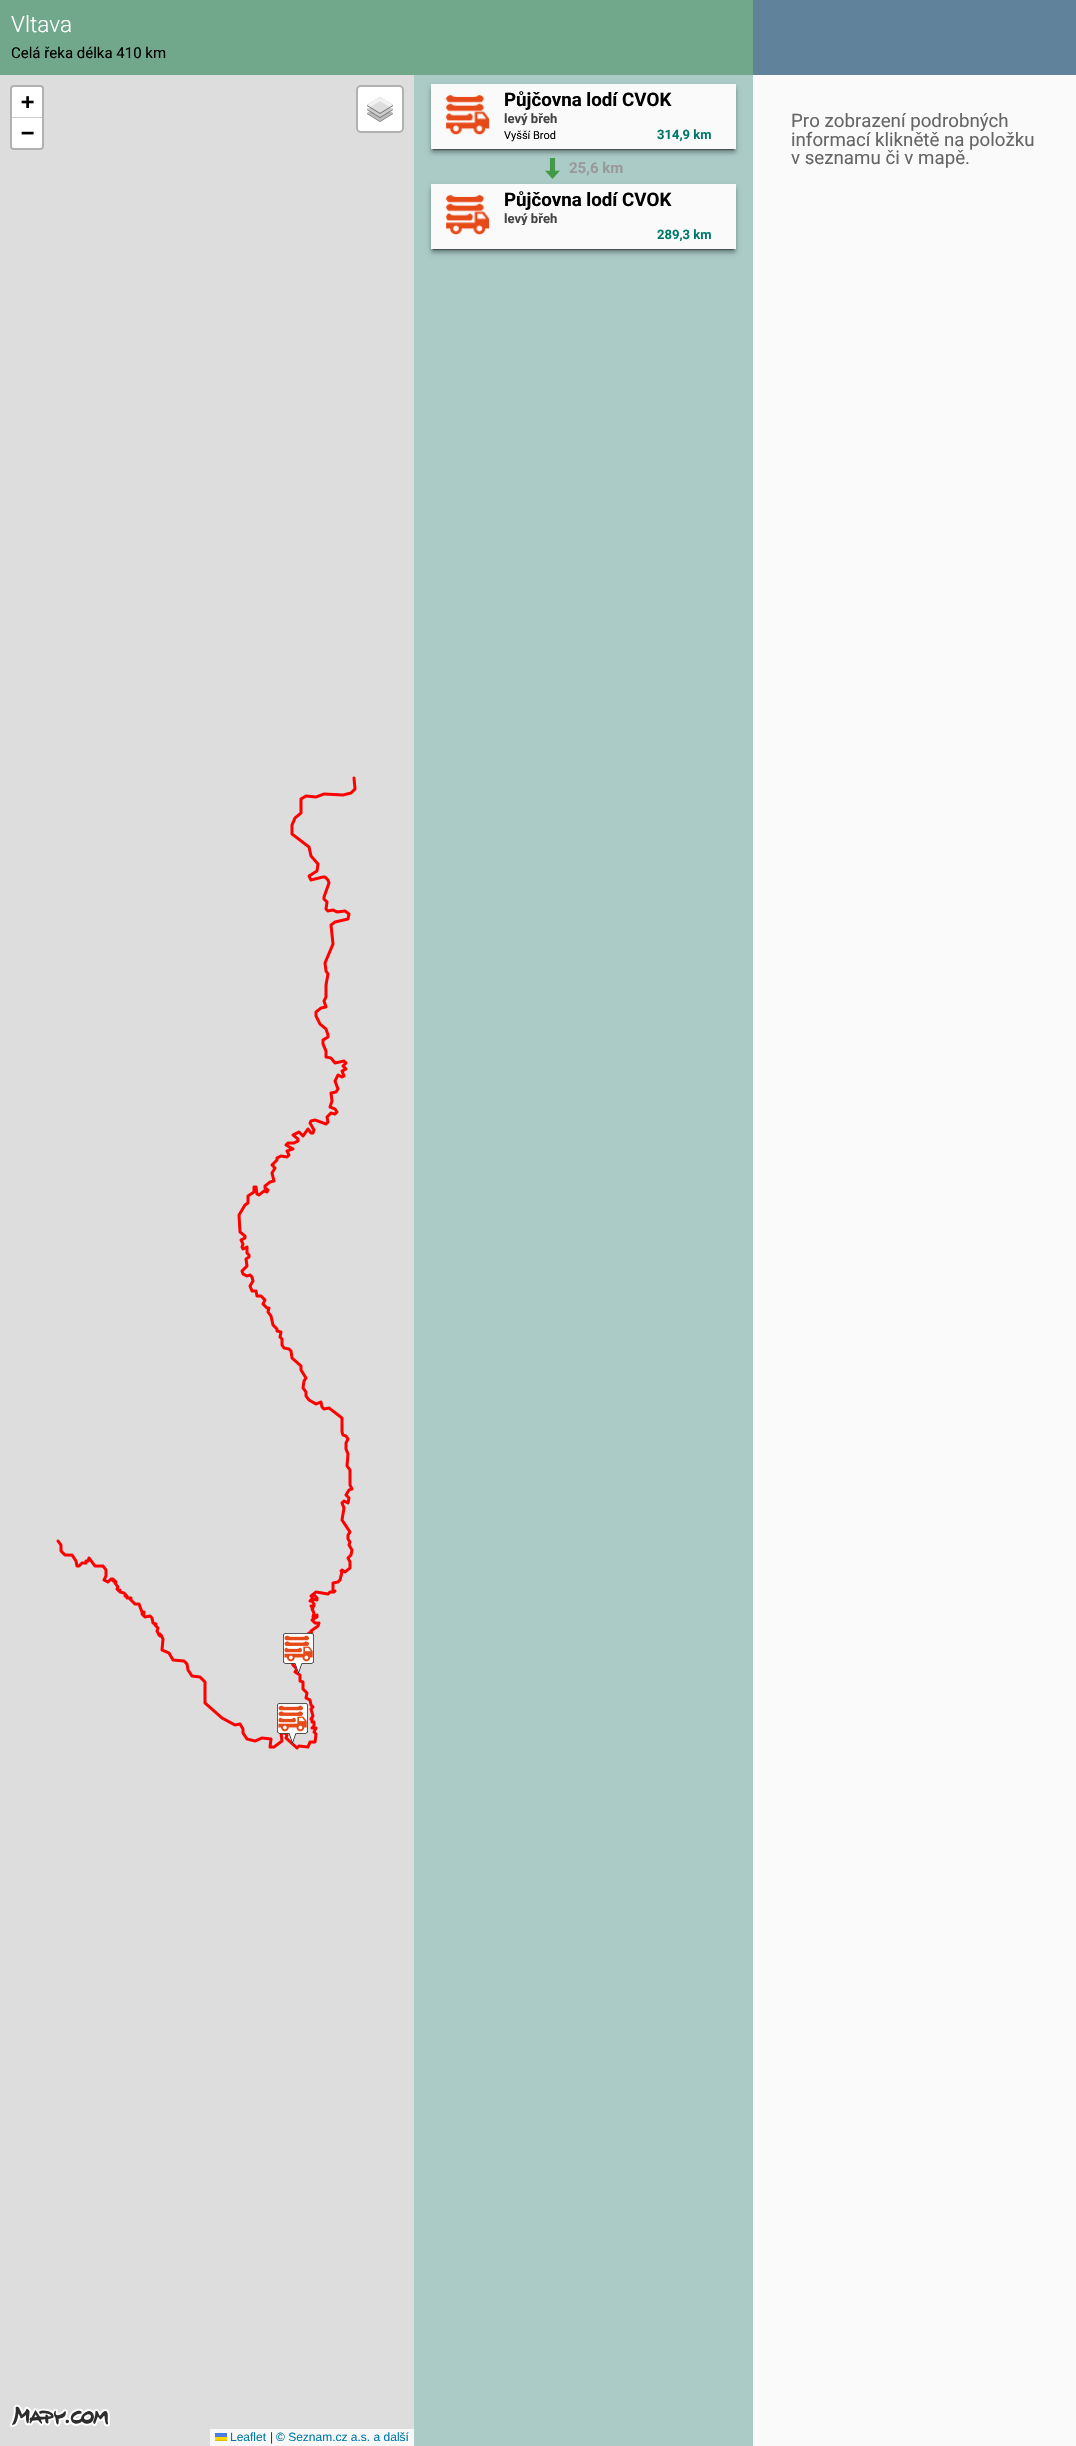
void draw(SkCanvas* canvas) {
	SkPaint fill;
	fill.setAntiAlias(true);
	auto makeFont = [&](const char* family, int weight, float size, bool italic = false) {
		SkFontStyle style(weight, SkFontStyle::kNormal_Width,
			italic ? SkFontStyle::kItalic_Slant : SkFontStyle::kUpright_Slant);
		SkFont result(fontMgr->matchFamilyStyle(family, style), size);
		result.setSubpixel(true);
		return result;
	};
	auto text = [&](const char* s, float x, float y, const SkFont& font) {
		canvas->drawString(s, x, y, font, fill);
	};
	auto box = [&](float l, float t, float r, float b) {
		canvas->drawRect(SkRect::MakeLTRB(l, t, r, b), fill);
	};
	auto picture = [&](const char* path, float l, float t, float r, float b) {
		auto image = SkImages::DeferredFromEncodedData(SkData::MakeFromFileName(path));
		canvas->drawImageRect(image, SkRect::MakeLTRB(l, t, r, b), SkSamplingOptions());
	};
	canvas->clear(0xFFABCBC7);
	fill.setColor(0xFF71A88C);
	box(0, 0, 753, 75);
	fill.setColor(0xFFDDDDDD);
	box(0, 75, 414, 2446);
	fill.setStyle(SkPaint::kStroke_Style);
	fill.setStrokeWidth(2);
	fill.setColor(0xFFB1B1B1);
	canvas->drawRoundRect(SkRect::MakeLTRB(11, 86, 43, 149), 3, 3, fill);
	fill.setStyle(SkPaint::kFill_Style);
	fill.setColor(0xFFFFFFFF);
	canvas->drawPath(SkPathBuilder().moveTo(14, 87).lineTo(40, 87).cubicTo(41, 87, 42, 88, 42, 89).lineTo(42, 118).lineTo(12, 118).lineTo(12, 89).cubicTo(12, 88, 13, 87, 14, 87).close().detach(), fill);
	fill.setColor(0xFFCCCCCC);
	box(12, 117, 42, 118);
	fill.setColor(0xFFFFFFFF);
	canvas->drawPath(SkPathBuilder().moveTo(12, 118).lineTo(42, 118).lineTo(42, 146).cubicTo(42, 147, 41, 148, 40, 148).lineTo(14, 148).cubicTo(13, 148, 12, 147, 12, 146).close().detach(), fill);
	canvas->drawRoundRect(SkRect::MakeLTRB(357, 86, 403, 132), 4, 4, fill);
	fill.setStyle(SkPaint::kStroke_Style);
	fill.setColor(0xFFB1B1B1);
	canvas->drawRoundRect(SkRect::MakeLTRB(357, 86, 403, 132), 4, 4, fill);
	picture("image0.png", 367, 97, 393, 122);
	picture("image1.png", 10, 2404, 110, 2427);
	fill.setStyle(SkPaint::kFill_Style);
	fill.setColor(0xFFF8F8F8);
	box(210, 2429, 414, 2446);
	fill.setColor(0xFF4C7BE1);
	box(215, 2433, 227, 2437);
	fill.setColor(0xFFFFD500);
	box(215, 2437, 227, 2440);
	fill.setColor(0xFFE0BC00);
	box(215, 2440, 227, 2441);
	picture("image2.png", 56, 776, 357, 1750);
	picture("image3.png", 283, 1633, 314, 1674);
	picture("image4.png", 277, 1703, 308, 1744);
	fill.setColor(0x1F000000);
	fill.setMaskFilter(SkMaskFilter::MakeBlur(kNormal_SkBlurStyle, 2.5f));
	canvas->drawRect(SkRect::MakeLTRB(431, 87, 736, 152), fill);
	fill.setMaskFilter(nullptr);
	fill.setColor(0x66000000);
	fill.setMaskFilter(SkMaskFilter::MakeBlur(kNormal_SkBlurStyle, 0.5f));
	canvas->drawRect(SkRect::MakeLTRB(433, 89, 734, 150), fill);
	fill.setMaskFilter(nullptr);
	fill.setColor(0x3D000000);
	fill.setMaskFilter(SkMaskFilter::MakeBlur(kNormal_SkBlurStyle, 2));
	canvas->drawRect(SkRect::MakeLTRB(431, 88, 736, 153), fill);
	fill.setMaskFilter(nullptr);
	fill.setColor(0xFFFAFAFA);
	box(431, 84, 736, 149);
	picture("image5.png", 446, 94, 490, 135);
	fill.setColor(0x1F000000);
	fill.setMaskFilter(SkMaskFilter::MakeBlur(kNormal_SkBlurStyle, 2.5f));
	canvas->drawRect(SkRect::MakeLTRB(431, 187, 736, 252), fill);
	fill.setMaskFilter(nullptr);
	picture("image6.png", 545, 158, 560, 179);
	fill.setColor(0x66000000);
	fill.setMaskFilter(SkMaskFilter::MakeBlur(kNormal_SkBlurStyle, 0.5f));
	canvas->drawRect(SkRect::MakeLTRB(433, 189, 734, 250), fill);
	fill.setMaskFilter(nullptr);
	fill.setColor(0x3D000000);
	fill.setMaskFilter(SkMaskFilter::MakeBlur(kNormal_SkBlurStyle, 2));
	canvas->drawRect(SkRect::MakeLTRB(431, 188, 736, 253), fill);
	fill.setMaskFilter(nullptr);
	fill.setColor(0xFFFAFAFA);
	box(431, 184, 736, 249);
	picture("image5.png", 446, 194, 490, 235);
	box(753, 75, 1076, 2446);
	fill.setColor(0xFF60829A);
	box(753, 0, 1076, 75);
	auto font1 = makeFont("Roboto", 300, 22.5f);
	fill.setColor(0xFFFFFFFF);
	text("Vltava", 11, 32, font1);
	auto font2 = makeFont("Roboto", 400, 15);
	fill.setColor(0xFF000000);
	text("Celá řeka délka 410 km", 11, 58, font2);
	auto font3 = makeFont("DejaVu Sans Mono", 700, 22);
	text("+", 21, 109, font3);
	text("−", 21, 140, font3);
	auto font4 = makeFont("Liberation Sans", 400, 12);
	fill.setColor(0xFF0078A8);
	text("Leaflet", 230, 2441, font4);
	fill.setColor(0xFF333333);
	text("|", 270, 2441, font4);
	fill.setColor(0xFF0078A8);
	text("© Seznam.cz a.s. a další", 276, 2441, font4);
	auto font5 = makeFont("Roboto", 700, 18.7f);
	fill.setColor(0xFF000000);
	text("Půjčovna lodí CVOK", 504, 106, font5);
	canvas->save();
	canvas->clipRect(SkRect::MakeLTRB(504, 112, 657, 125));
	auto font6 = makeFont("Roboto", 700, 13);
	fill.setColor(0xFF444444);
	text("levý břeh", 504, 123, font6);
	canvas->restore();
	auto font7 = makeFont("Roboto", 400, 11);
	fill.setColor(0xFF000000);
	text("Vyšší Brod", 504, 139, font7);
	fill.setColor(0xFF00796B);
	text("314,9 km", 657, 139, font6);
	auto font8 = makeFont("Roboto", 700, 15);
	fill.setColor(0xFF999999);
	text("25,6 km", 569, 173, font8);
	fill.setColor(0xFF000000);
	text("Půjčovna lodí CVOK", 504, 206, font5);
	canvas->save();
	canvas->clipRect(SkRect::MakeLTRB(504, 212, 657, 225));
	fill.setColor(0xFF444444);
	text("levý břeh", 504, 223, font6);
	canvas->restore();
	fill.setColor(0xFF00796B);
	text("289,3 km", 657, 239, font6);
	auto font9 = makeFont("Roboto", 400, 18.7f);
	fill.setColor(0xFF666666);
	text("Pro zobrazení podrobných", 791, 127, font9);
	text("informací kliknětě na položku", 791, 146, font9);
	text("v seznamu či v mapě.", 791, 164, font9);
}
